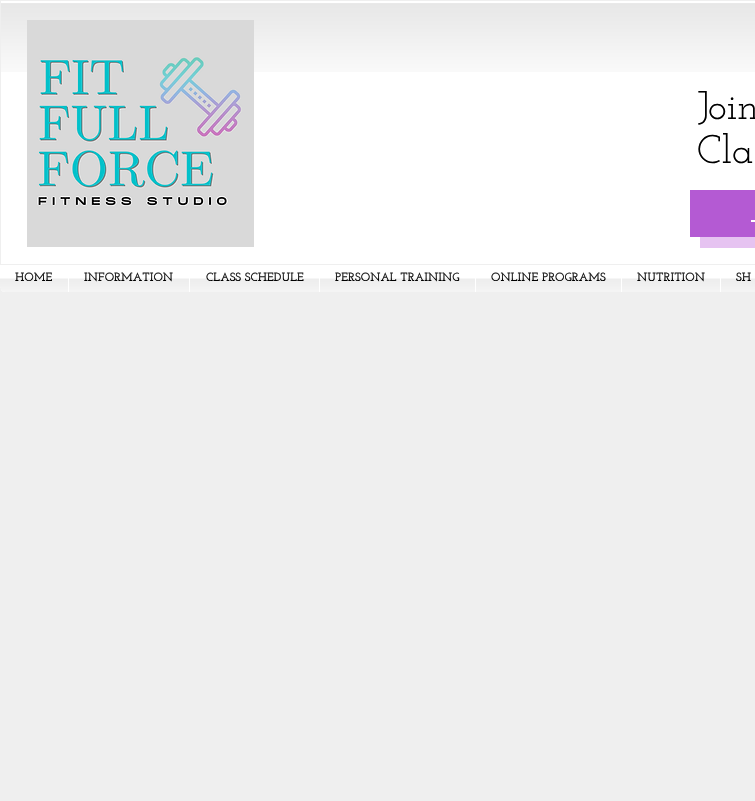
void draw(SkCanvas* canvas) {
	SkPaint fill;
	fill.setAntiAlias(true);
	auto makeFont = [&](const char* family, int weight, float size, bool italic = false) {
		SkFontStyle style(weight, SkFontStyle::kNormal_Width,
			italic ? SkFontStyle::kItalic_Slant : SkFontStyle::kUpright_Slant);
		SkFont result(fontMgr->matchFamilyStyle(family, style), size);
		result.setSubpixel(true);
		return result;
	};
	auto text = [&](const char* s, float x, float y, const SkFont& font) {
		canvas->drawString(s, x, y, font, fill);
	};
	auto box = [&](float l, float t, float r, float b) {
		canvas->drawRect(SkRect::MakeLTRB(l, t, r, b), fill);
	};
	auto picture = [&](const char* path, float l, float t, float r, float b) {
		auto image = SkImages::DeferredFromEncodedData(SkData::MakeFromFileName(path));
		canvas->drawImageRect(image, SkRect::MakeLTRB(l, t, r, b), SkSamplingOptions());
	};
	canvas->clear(0xFFEFEFEF);
	fill.setColor(0xFFFFFFFF);
	box(1, 1, 755, 264);
	picture("image0.png", 1, 3, 755, 72);
	picture("image1.png", 27, 20, 254, 247);
	fill.setColor(0xFFE6C3F1);
	canvas->drawPath(SkPathBuilder().moveTo(700, 237).lineTo(700, 248).lineTo(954, 248).lineTo(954, 201).lineTo(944, 201).lineTo(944, 237).close().detach(), fill);
	fill.setColor(0xFFB45AD3);
	box(690, 190, 755, 237);
	fill.setColor(0xFFFFFFFF);
	box(751, 220, 755, 222);
	picture("image2.png", 0, 287, 5, 292);
	canvas->drawPath(SkPathBuilder().moveTo(0, 265).lineTo(68, 265).lineTo(68, 292).lineTo(5, 292).cubicTo(2, 292, 0, 290, 0, 287).close().detach(), fill);
	box(68, 265, 755, 292);
	auto font1 = makeFont("Josefin Slab", 400, 40);
	fill.setColor(0xFF000000);
	text("Join", 697, 119, font1);
	text("Cla", 697, 163, font1);
	auto font2 = makeFont("Josefin Slab", 700, 12);
	text("HOME", 15, 281, font2);
	picture("image3.png", 0, 272, 68, 292);
	text("INFORMATION", 84, 281, font2);
	picture("image4.png", 69, 272, 189, 292);
	text("CLASS SCHEDULE", 206, 281, font2);
	picture("image5.png", 190, 272, 319, 292);
	text("PERSONAL TRAINING", 335, 281, font2);
	picture("image6.png", 320, 272, 475, 292);
	text("ONLINE PROGRAMS", 491, 281, font2);
	picture("image7.png", 476, 272, 621, 292);
	text("NUTRITION", 637, 281, font2);
	picture("image8.png", 622, 272, 720, 292);
	text("SH", 736, 281, font2);
	picture("image9.png", 721, 272, 755, 292);
}
